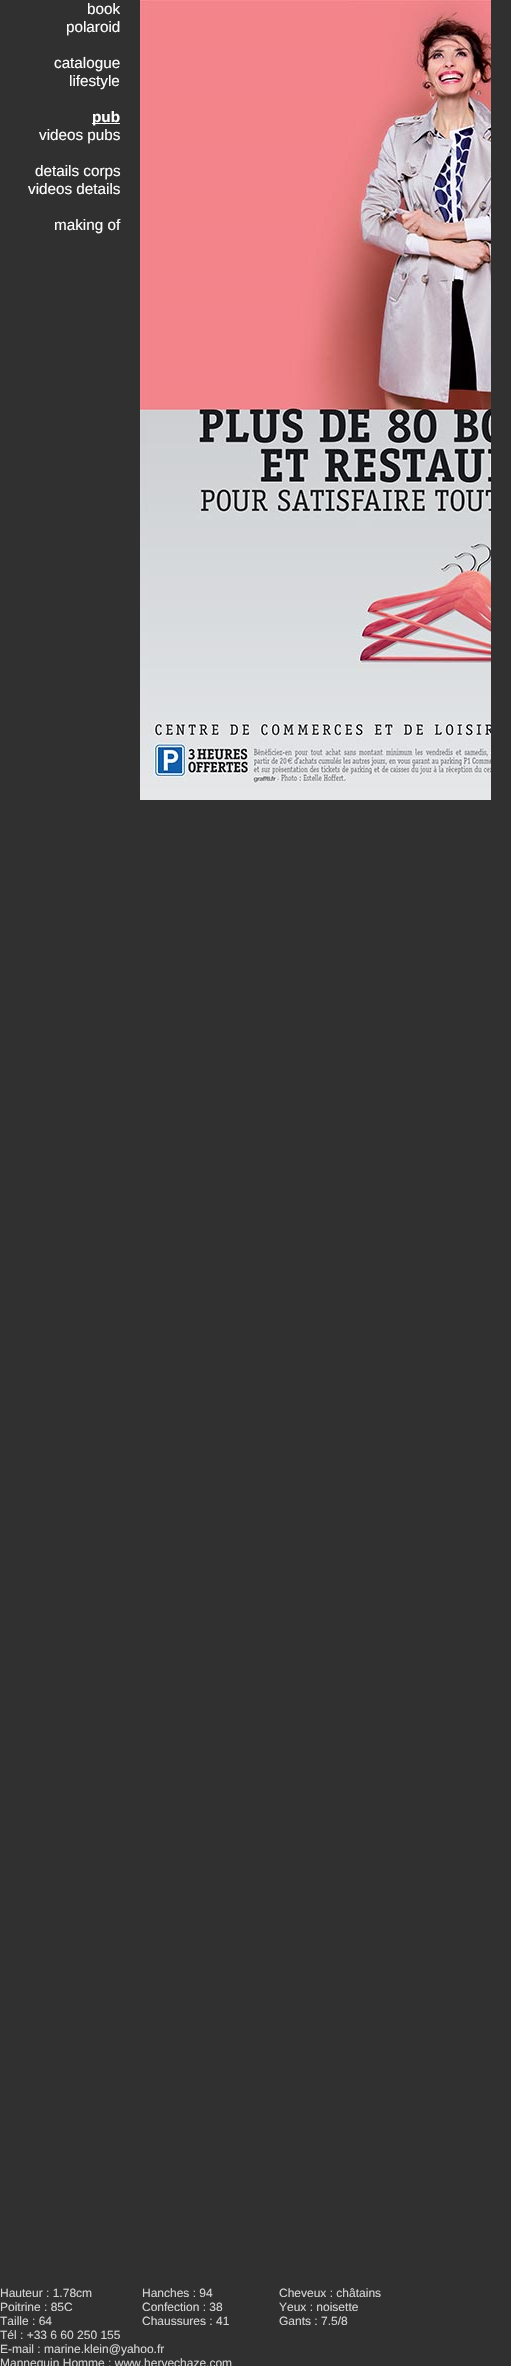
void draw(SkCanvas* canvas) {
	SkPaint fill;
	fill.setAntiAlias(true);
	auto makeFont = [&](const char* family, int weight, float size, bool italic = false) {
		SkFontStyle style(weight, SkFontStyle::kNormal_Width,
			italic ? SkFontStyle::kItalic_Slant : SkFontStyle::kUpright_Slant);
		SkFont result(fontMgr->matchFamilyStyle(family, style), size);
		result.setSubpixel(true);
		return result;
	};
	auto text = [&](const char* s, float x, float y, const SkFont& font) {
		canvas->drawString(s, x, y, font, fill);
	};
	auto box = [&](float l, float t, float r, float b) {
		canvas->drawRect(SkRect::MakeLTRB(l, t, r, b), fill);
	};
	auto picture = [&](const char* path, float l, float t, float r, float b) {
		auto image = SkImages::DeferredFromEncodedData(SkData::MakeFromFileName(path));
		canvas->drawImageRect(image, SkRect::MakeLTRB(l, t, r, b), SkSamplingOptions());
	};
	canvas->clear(0xFF303030);
	fill.setColor(0xFFFFFFFF);
	box(92, 123, 120, 124);
	picture("image0.png", 140, 0, 491, 800);
	auto font1 = makeFont("Liberation Sans", 400, 15.25f);
	text("book", 87, 14, font1);
	text("polaroid", 66, 32, font1);
	text("catalogue", 54, 68, font1);
	text("lifestyle", 69, 86, font1);
	auto font2 = makeFont("Liberation Sans", 700, 15.25f);
	text("pub", 92, 122, font2);
	text("videos pubs", 39, 140, font1);
	text("details corps", 35, 176, font1);
	text("videos details", 28, 194, font1);
	text("making of", 54, 230, font1);
	auto font3 = makeFont("Liberation Sans", 400, 12);
	fill.setColor(0xFFD4D4D4);
	text("Hauteur : 1.78cm", 0, 2297, font3);
	text("Poitrine : 85C", 0, 2311, font3);
	text("Taille : 64", 0, 2325, font3);
	text("Hanches : 94", 142, 2297, font3);
	text("Confection : 38", 142, 2311, font3);
	text("Chaussures : 41", 142, 2325, font3);
	text("Cheveux : châtains", 279, 2297, font3);
	text("Yeux : noisette", 279, 2311, font3);
	text("Gants : 7.5/8", 279, 2325, font3);
	text("Tél : +33 6 60 250 155", 0, 2339, font3);
	text("E-mail : marine.klein@yahoo.fr", 0, 2353, font3);
	text("Mannequin Homme : www.hervechaze.com", 0, 2367, font3);
}
